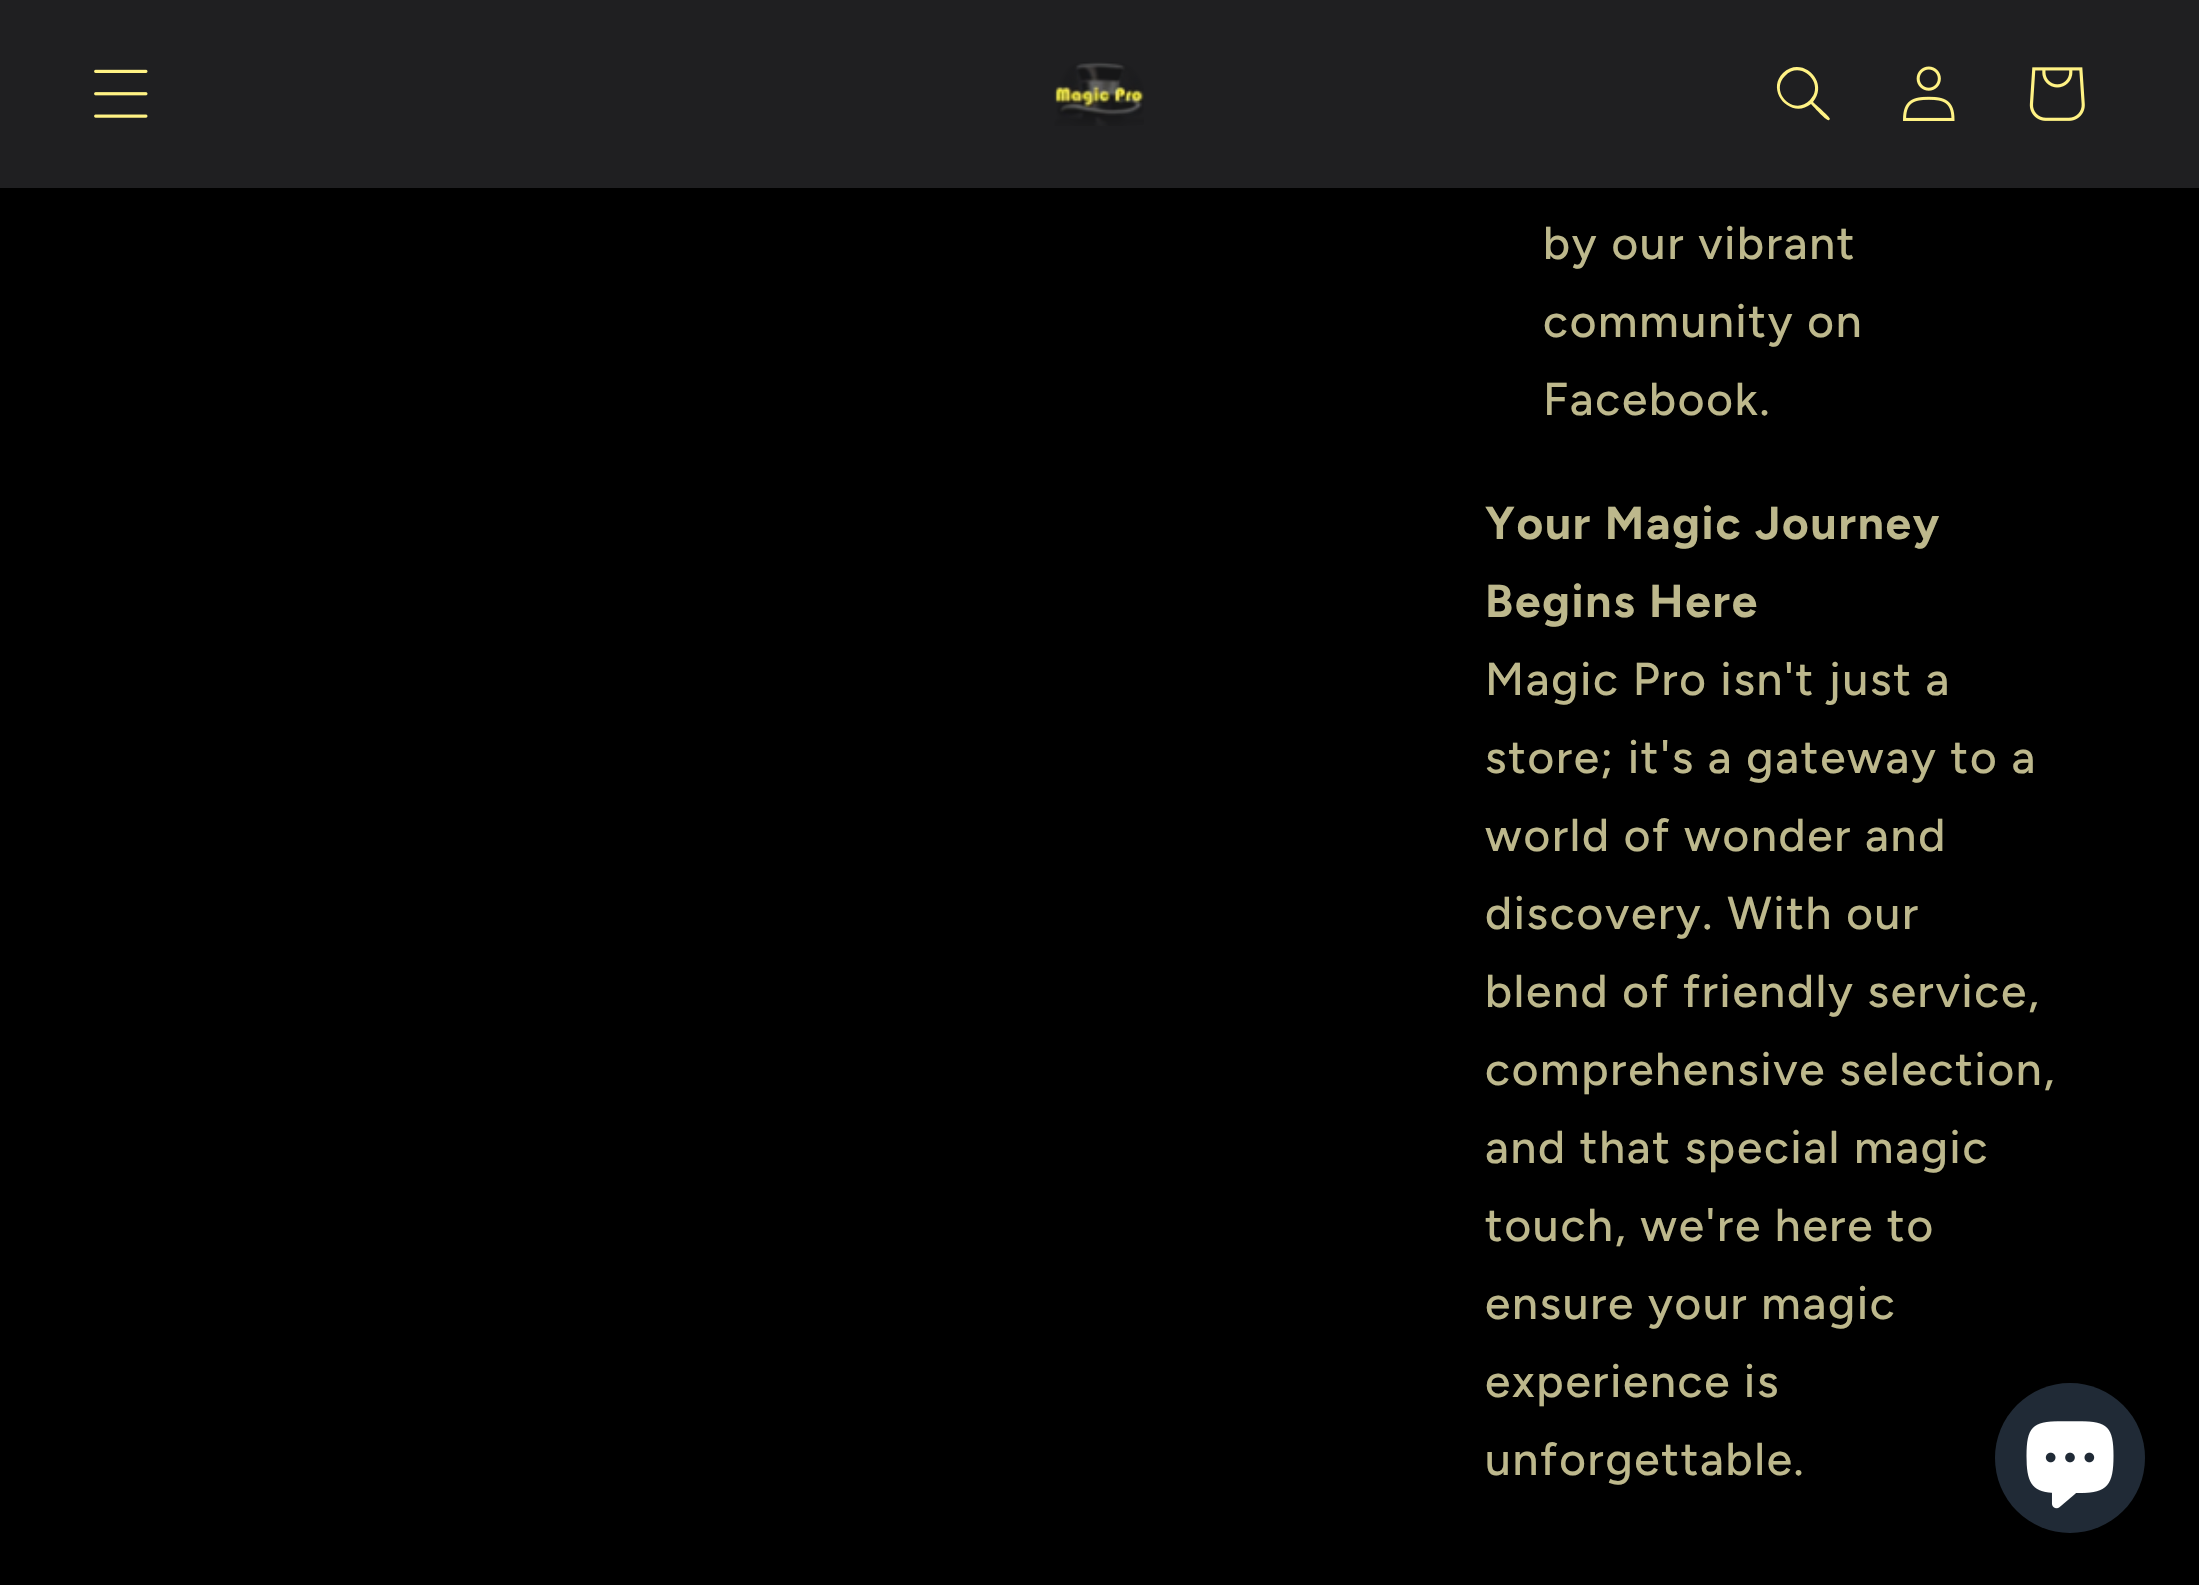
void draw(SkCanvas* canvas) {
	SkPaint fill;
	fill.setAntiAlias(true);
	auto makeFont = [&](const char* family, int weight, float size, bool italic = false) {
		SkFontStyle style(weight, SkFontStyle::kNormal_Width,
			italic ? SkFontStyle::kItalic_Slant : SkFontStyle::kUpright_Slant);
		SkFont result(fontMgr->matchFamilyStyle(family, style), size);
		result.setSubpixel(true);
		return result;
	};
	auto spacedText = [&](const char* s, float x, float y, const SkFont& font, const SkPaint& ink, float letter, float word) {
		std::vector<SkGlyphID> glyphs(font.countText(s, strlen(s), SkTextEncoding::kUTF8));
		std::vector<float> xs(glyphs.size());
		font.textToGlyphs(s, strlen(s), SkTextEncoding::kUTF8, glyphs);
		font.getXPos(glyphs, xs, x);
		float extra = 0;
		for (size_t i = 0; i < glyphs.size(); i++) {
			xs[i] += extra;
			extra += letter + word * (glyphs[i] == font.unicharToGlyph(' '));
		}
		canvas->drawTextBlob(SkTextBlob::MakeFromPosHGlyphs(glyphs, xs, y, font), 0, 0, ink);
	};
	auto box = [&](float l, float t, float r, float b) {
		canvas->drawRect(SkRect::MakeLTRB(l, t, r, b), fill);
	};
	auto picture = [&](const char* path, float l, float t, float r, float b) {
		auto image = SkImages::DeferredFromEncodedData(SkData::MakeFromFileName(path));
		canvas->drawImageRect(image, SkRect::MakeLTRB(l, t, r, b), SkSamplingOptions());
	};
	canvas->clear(0xFF000000);
	fill.setColor(0xFF1F1F21);
	box(0, 0, 2199, 188);
	picture("image0.png", 94, 69, 148, 118);
	picture("image1.png", 1054, 62, 1144, 126);
	fill.setColor(0xFFFFF284);
	canvas->drawPath(SkPathBuilder(SkPathFillType::kEvenOdd).moveTo(1810, 100).cubicTo(1794, 117, 1769, 92, 1785, 76).cubicTo(1801, 59, 1826, 84, 1810, 100).close().moveTo(1811, 104).cubicTo(1791, 120, 1765, 91, 1783, 73).cubicTo(1802, 55, 1830, 82, 1813, 102).cubicTo(1815, 104, 1830, 117, 1830, 119).lineTo(1829, 120).cubicTo(1827, 122, 1813, 106, 1811, 104).close().detach(), fill);
	picture("image2.png", 1903, 66, 1955, 121);
	picture("image3.png", 2029, 67, 2085, 121);
	fill.setColor(0xFF202A36);
	canvas->drawCircle(2070, 1458, 75, fill);
	picture("image4.png", 2026, 1421, 2114, 1509);
	auto font1 = makeFont("Figtree", 500, 46);
	fill.setColor(0xFFBDB88C);
	spacedText("by our vibrant", 1543, 259, font1, fill, 1.75f, 0);
	spacedText("community on", 1543, 337, font1, fill, 1.75f, 0);
	spacedText("Facebook.", 1543, 415, font1, fill, 1.75f, 0);
	auto font2 = makeFont("Figtree", 700, 46);
	spacedText("Your Magic Journey", 1485, 539, font2, fill, 1.75f, 0);
	spacedText("Begins Here", 1485, 617, font2, fill, 1.75f, 0);
	spacedText("Magic Pro isn't just a", 1485, 695, font1, fill, 1.75f, 0);
	spacedText("store; it's a gateway to a", 1485, 773, font1, fill, 1.75f, 0);
	spacedText("world of wonder and", 1485, 851, font1, fill, 1.75f, 0);
	spacedText("discovery. With our", 1485, 929, font1, fill, 1.75f, 0);
	spacedText("blend of friendly service,", 1485, 1007, font1, fill, 1.75f, 0);
	spacedText("comprehensive selection,", 1485, 1085, font1, fill, 1.75f, 0);
	spacedText("and that special magic", 1485, 1163, font1, fill, 1.75f, 0);
	spacedText("touch, we're here to", 1485, 1241, font1, fill, 1.75f, 0);
	spacedText("ensure your magic", 1485, 1319, font1, fill, 1.75f, 0);
	spacedText("experience is", 1485, 1397, font1, fill, 1.75f, 0);
	spacedText("unforgettable.", 1485, 1475, font1, fill, 1.75f, 0);
}
